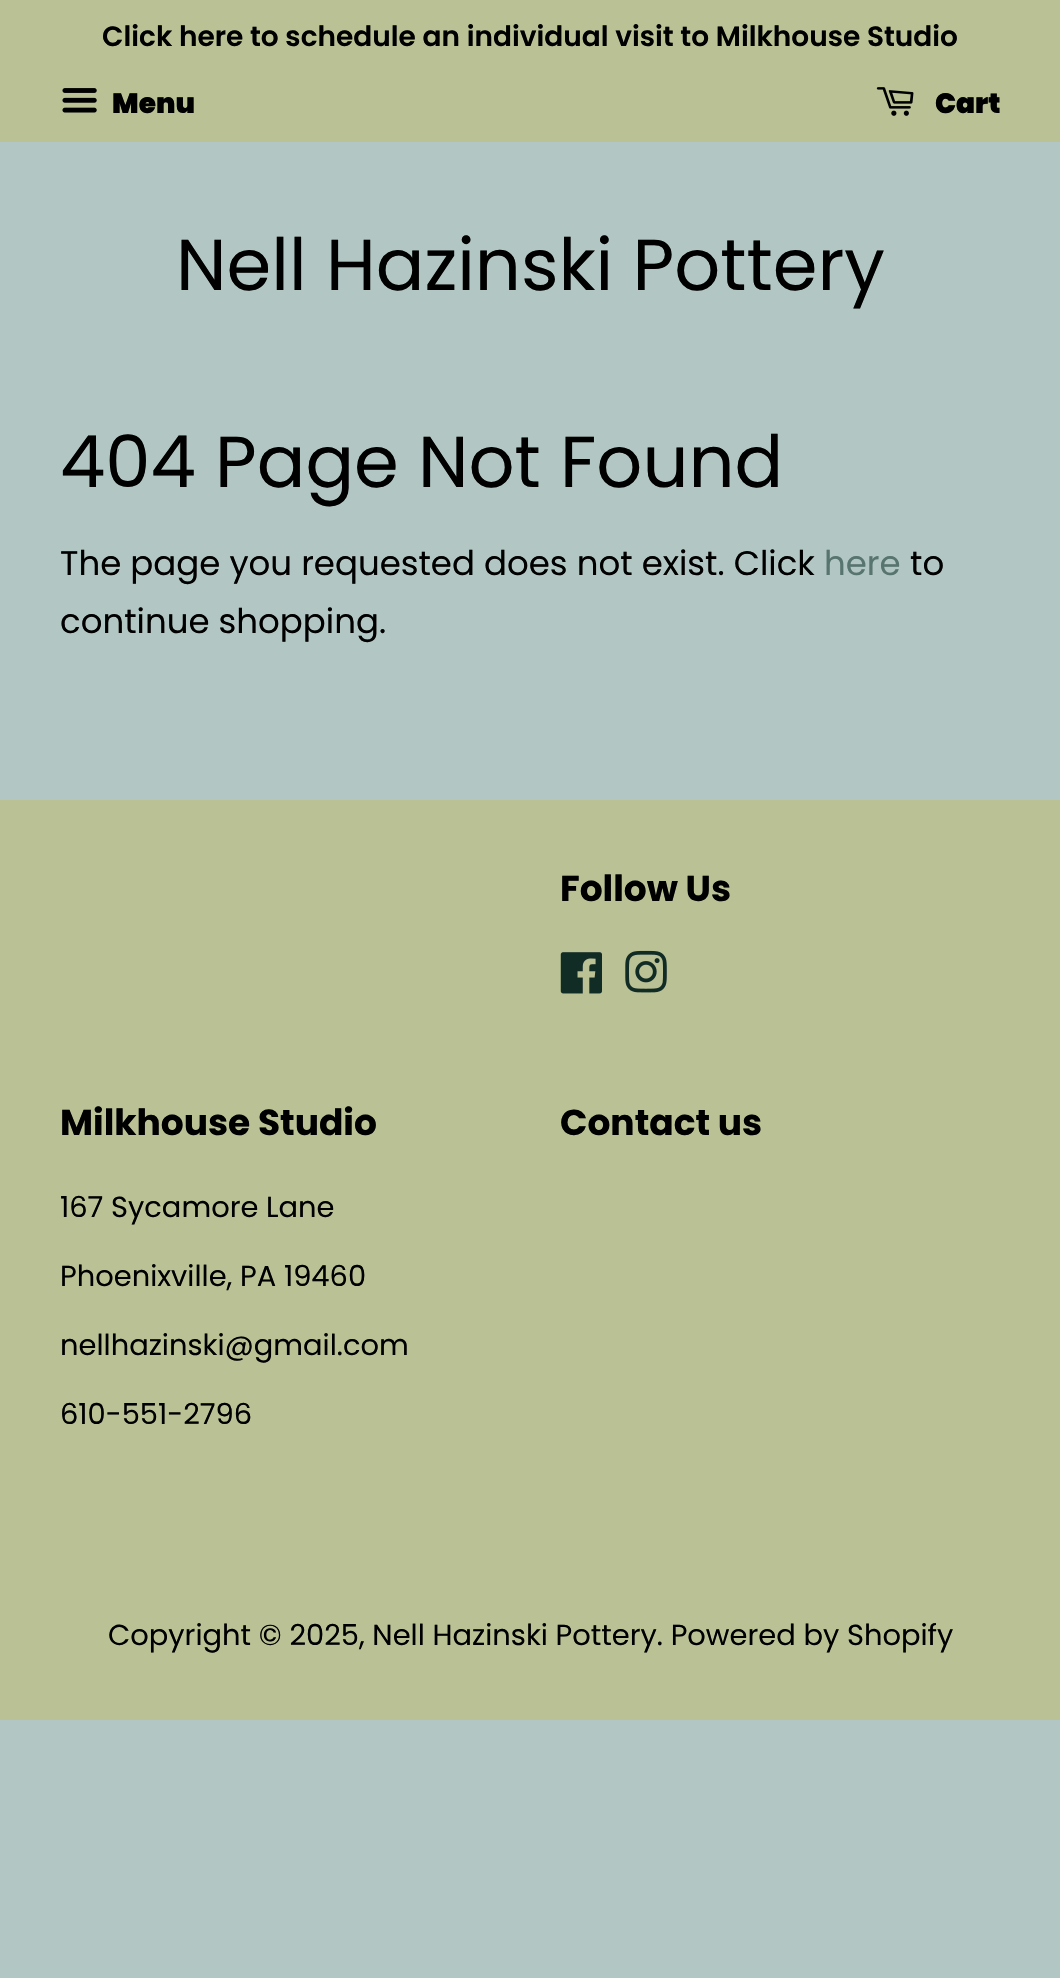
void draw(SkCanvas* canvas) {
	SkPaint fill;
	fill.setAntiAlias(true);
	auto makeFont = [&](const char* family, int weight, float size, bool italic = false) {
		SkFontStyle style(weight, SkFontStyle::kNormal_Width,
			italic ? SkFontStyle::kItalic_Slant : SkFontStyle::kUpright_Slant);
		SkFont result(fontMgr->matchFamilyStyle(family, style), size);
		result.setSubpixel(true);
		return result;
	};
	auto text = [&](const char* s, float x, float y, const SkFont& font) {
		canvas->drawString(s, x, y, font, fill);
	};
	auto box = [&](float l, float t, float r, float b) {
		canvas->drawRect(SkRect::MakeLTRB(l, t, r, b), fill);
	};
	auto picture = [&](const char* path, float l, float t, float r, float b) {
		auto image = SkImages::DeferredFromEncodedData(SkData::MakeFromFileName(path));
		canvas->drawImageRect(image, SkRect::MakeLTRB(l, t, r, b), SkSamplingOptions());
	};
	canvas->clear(0xFFB2C6C3);
	fill.setColor(0xFFBAC195);
	box(0, 0, 1060, 142);
	picture("image0.png", 62, 88, 97, 113);
	picture("image1.png", 876, 87, 914, 116);
	box(0, 800, 1060, 1720);
	picture("image2.png", 560, 952, 602, 994);
	picture("image3.png", 625, 950, 667, 993);
	auto font1 = makeFont("Poppins", 600, 28);
	fill.setColor(0xFF000000);
	text("Click here to schedule an individual visit to Milkhouse Studio", 102, 46, font1);
	auto font2 = makeFont("Poppins", 900, 28);
	text("Menu", 112, 113, font2);
	text("Cart", 935, 113, font2);
	auto font3 = makeFont("Poppins", 400, 72);
	text("Nell Hazinski Pottery", 176, 290, font3);
	text("404 Page Not Found", 60, 487, font3);
	auto font4 = makeFont("Poppins", 400, 34);
	text("The page you requested does not exist. Click", 60, 575, font4);
	fill.setColor(0xFF57746E);
	text("here", 824, 575, font4);
	fill.setColor(0xFF000000);
	text("to", 910, 575, font4);
	text("continue shopping.", 60, 633, font4);
	auto font5 = makeFont("Poppins", 700, 36);
	text("Follow Us", 560, 901, font5);
	text("Milkhouse Studio", 60, 1135, font5);
	auto font6 = makeFont("Poppins", 400, 28.9f);
	text("167 Sycamore Lane", 60, 1217, font6);
	text("Phoenixville, PA 19460", 60, 1286, font6);
	text("nellhazinski@gmail.com", 60, 1355, font6);
	text("610-551-2796", 60, 1424, font6);
	text("Contact us", 560, 1135, font5);
	text("Copyright © 2025, Nell Hazinski Pottery. Powered by Shopify", 108, 1645, font6);
}
